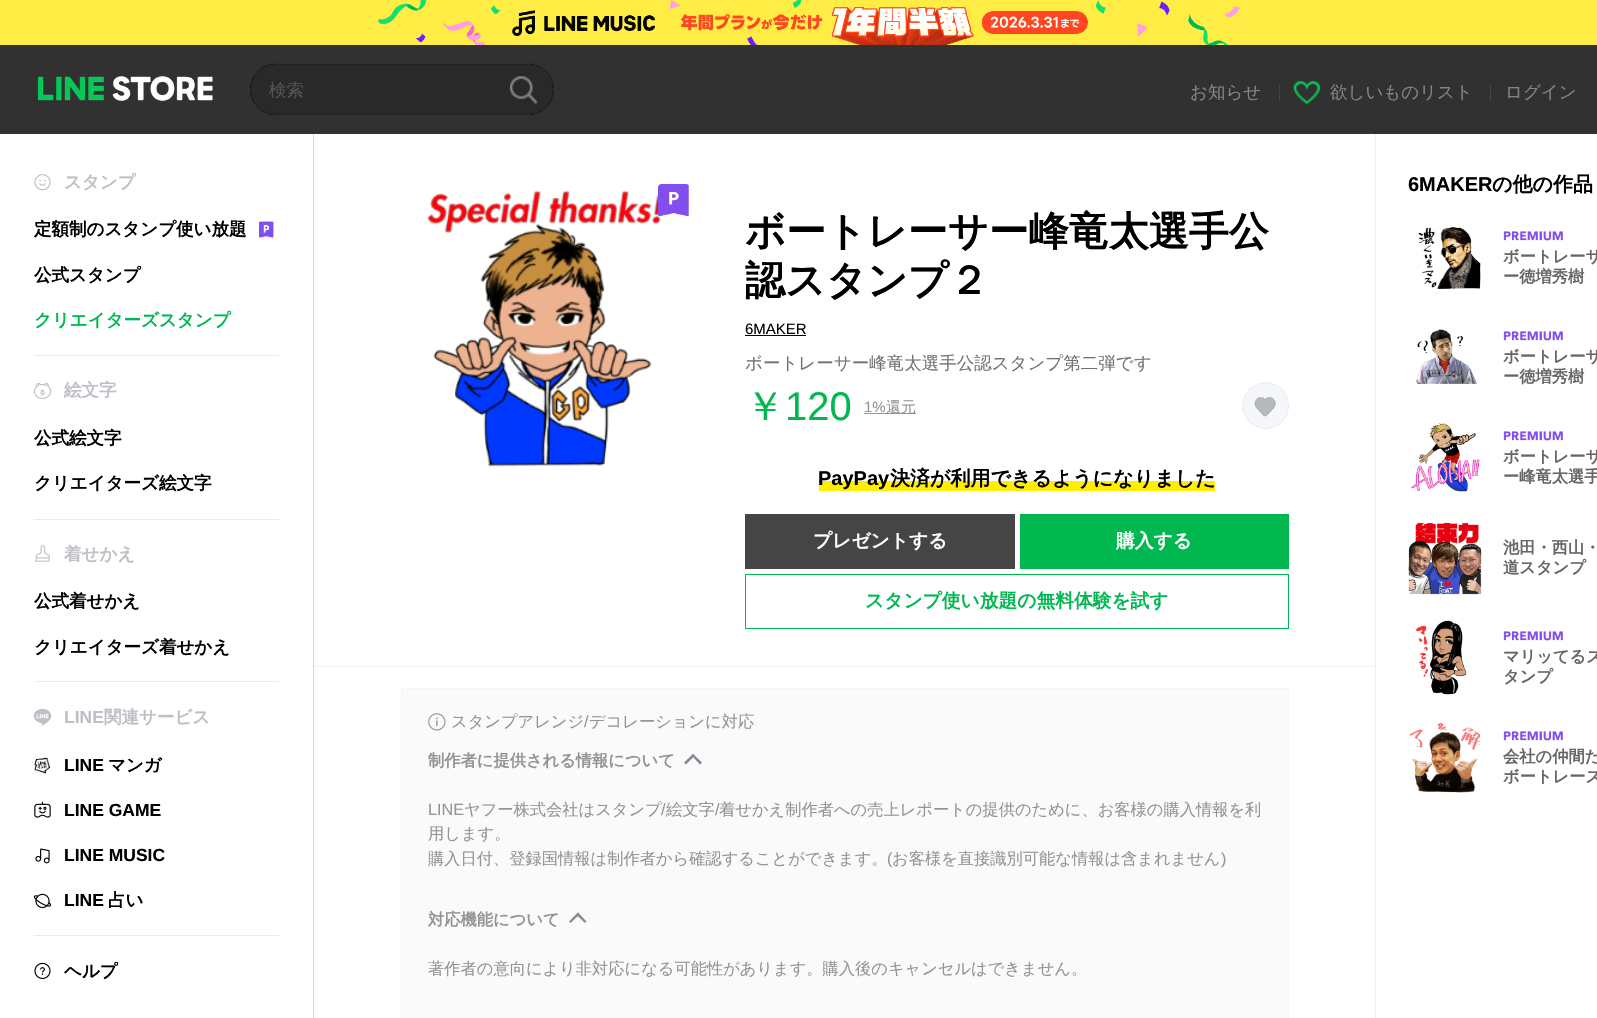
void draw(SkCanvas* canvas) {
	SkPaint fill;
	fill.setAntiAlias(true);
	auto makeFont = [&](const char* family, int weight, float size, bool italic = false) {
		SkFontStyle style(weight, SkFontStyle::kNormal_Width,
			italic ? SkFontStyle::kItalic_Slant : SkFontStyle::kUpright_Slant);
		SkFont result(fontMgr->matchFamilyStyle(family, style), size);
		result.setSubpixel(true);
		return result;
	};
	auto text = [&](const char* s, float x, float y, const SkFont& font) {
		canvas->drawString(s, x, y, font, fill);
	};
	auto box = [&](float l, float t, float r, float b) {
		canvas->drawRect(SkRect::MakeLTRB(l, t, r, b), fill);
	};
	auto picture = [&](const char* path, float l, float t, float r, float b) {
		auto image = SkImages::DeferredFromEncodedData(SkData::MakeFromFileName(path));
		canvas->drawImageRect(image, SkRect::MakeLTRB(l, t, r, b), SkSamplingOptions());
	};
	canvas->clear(0xFFFFFFFF);
	picture("image0.png", 0, 0, 1597, 45);
	fill.setColor(0xFF313131);
	box(0, 45, 1597, 134);
	picture("image1.png", 37, 76, 213, 101);
	picture("image2.png", 250, 63, 554, 115);
	picture("image3.png", 510, 76, 538, 104);
	fill.setColor(0xFF444444);
	box(1279, 85, 1280, 101);
	picture("image4.png", 1293, 81, 1321, 104);
	box(1490, 85, 1491, 101);
	picture("image5.png", 34, 174, 51, 191);
	picture("image6.png", 259, 221, 274, 238);
	fill.setColor(0xFFEBEBEB);
	box(34, 355, 279, 356);
	picture("image7.png", 33, 382, 52, 399);
	box(34, 519, 279, 520);
	picture("image8.png", 35, 545, 50, 562);
	box(34, 681, 279, 682);
	picture("image9.png", 33, 708, 52, 726);
	picture("image10.png", 34, 757, 51, 774);
	picture("image11.png", 34, 801, 51, 818);
	picture("image12.png", 35, 848, 50, 864);
	picture("image13.png", 33, 893, 52, 909);
	box(34, 935, 279, 936);
	picture("image14.png", 34, 962, 51, 979);
	fill.setColor(0xFFD6D6D6);
	box(313, 134, 314, 1018);
	picture("image15.png", 427, 190, 661, 467);
	picture("image16.png", 658, 184, 689, 217);
	fill.setColor(0xFF000000);
	box(745, 335, 806, 336);
	fill.setColor(0xFF949494);
	box(864, 413, 916, 414);
	picture("image17.png", 1242, 382, 1289, 429);
	fill.setColor(0xFFFFEE00);
	box(819, 481, 1215, 491);
	fill.setColor(0xFF454545);
	box(745, 514, 1015, 569);
	fill.setColor(0xFF00B84F);
	box(1020, 514, 1289, 569);
	fill.setStyle(SkPaint::kStroke_Style);
	fill.setStrokeWidth(1);
	canvas->drawRect(SkRect::MakeLTRB(745.5f, 574.5f, 1288.5f, 628.5f), fill);
	fill.setStyle(SkPaint::kFill_Style);
	fill.setColor(0xFFF2F2F2);
	box(314, 666, 1376, 667);
	fill.setColor(0xFFEFEFEF);
	box(1375, 134, 1376, 1018);
	fill.setColor(0xFFFAFAFA);
	canvas->drawRect(SkRect::MakeLTRB(401.5f, 688.5f, 1288.5f, 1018.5f), fill);
	fill.setStyle(SkPaint::kStroke_Style);
	fill.setColor(0xFFF5F5F5);
	canvas->drawRect(SkRect::MakeLTRB(401.5f, 688.5f, 1288.5f, 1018.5f), fill);
	picture("image18.png", 428, 713, 446, 731);
	fill.setStyle(SkPaint::kFill_Style);
	fill.setColor(0xFF848A94);
	canvas->drawPath(SkPathBuilder().moveTo(684, 762.5f).lineTo(693, 754).lineTo(695, 755.5f).lineTo(686, 764.5f).close().detach(), fill);
	canvas->drawPath(SkPathBuilder().moveTo(691.5f, 755.5f).lineTo(693, 754).lineTo(702, 762.5f).lineTo(700, 764.5f).close().detach(), fill);
	canvas->drawPath(SkPathBuilder().moveTo(569, 921.5f).lineTo(578, 912.5f).lineTo(579.5f, 914.5f).lineTo(570.5f, 923).close().detach(), fill);
	canvas->drawPath(SkPathBuilder().moveTo(576, 914.5f).lineTo(578, 912.5f).lineTo(586.5f, 921.5f).lineTo(585, 923).close().detach(), fill);
	picture("image19.png", 1418, 227, 1481, 290);
	picture("image20.png", 1503, 231, 1563, 241);
	picture("image21.png", 1415, 329, 1477, 385);
	picture("image20.png", 1503, 331, 1563, 341);
	picture("image22.png", 1411, 423, 1480, 492);
	picture("image20.png", 1503, 431, 1563, 441);
	picture("image23.png", 1408, 522, 1482, 595);
	picture("image24.png", 1416, 620, 1467, 695);
	picture("image20.png", 1503, 631, 1563, 641);
	picture("image25.png", 1409, 722, 1481, 793);
	picture("image20.png", 1503, 731, 1563, 741);
	auto font1 = makeFont("WenQuanYi Zen Hei", 500, 17.5f);
	fill.setColor(0xFF545454);
	text("検索", 269, 96, font1);
	fill.setColor(0xFF848484);
	text("お知らせ", 1190, 98, font1);
	text("欲しいものリスト", 1330, 98, font1);
	text("ログイン", 1505, 98, font1);
	auto font2 = makeFont("WenQuanYi Zen Hei", 700, 17.5f);
	fill.setColor(0xFFBEC0C7);
	text("スタンプ", 64, 188, font2);
	fill.setColor(0xFF000000);
	text("定額制のスタンプ使い放題", 34, 235, font2);
	text("公式スタンプ", 34, 281, font2);
	fill.setColor(0xFF00B84F);
	text("クリエイターズスタンプ", 34, 326, font2);
	fill.setColor(0xFFBEC0C7);
	text("絵文字", 64, 396, font2);
	fill.setColor(0xFF000000);
	text("公式絵文字", 34, 444, font2);
	text("クリエイターズ絵文字", 34, 489, font2);
	fill.setColor(0xFFBEC0C7);
	text("着せかえ", 64, 560, font2);
	fill.setColor(0xFF000000);
	text("公式着せかえ", 34, 607, font2);
	text("クリエイターズ着せかえ", 34, 653, font2);
	auto font3 = makeFont("Liberation Sans", 700, 17.5f);
	fill.setColor(0xFFBEC0C7);
	text("LINE", 64, 723, font3);
	text("関連サービス", 104, 723, font2);
	fill.setColor(0xFF000000);
	text("LINE", 64, 771, font3);
	text("マンガ", 108, 771, font2);
	text("LINE GAME", 64, 816, font3);
	text("LINE MUSIC", 64, 861, font3);
	text("LINE", 64, 906, font3);
	text("占い", 108, 906, font2);
	text("ヘルプ", 64, 977, font2);
	auto font4 = makeFont("WenQuanYi Zen Hei", 700, 40);
	text("ボートレーサー峰竜太選手公", 745, 245, font4);
	text("認スタンプ２", 745, 294, font4);
	auto font5 = makeFont("Liberation Sans", 400, 15);
	text("6MAKER", 745, 334, font5);
	fill.setColor(0xFF737373);
	text("ボートレーサー峰竜太選手公認スタンプ第二弾です", 745, 369, font1);
	auto font6 = makeFont("WenQuanYi Zen Hei", 500, 40);
	fill.setColor(0xFF00B84F);
	text("￥", 745, 420, font6);
	auto font7 = makeFont("Liberation Sans", 400, 40);
	text("120", 785, 420, font7);
	fill.setColor(0xFF949494);
	text("1%", 864, 412, font5);
	auto font8 = makeFont("WenQuanYi Zen Hei", 500, 15);
	text("還元", 886, 412, font8);
	auto font9 = makeFont("Liberation Sans", 700, 20);
	fill.setColor(0xFF000000);
	text("PayPay", 818, 485, font9);
	auto font10 = makeFont("WenQuanYi Zen Hei", 700, 20);
	text("決済が利用できるようになりました", 890, 485, font10);
	auto font11 = makeFont("WenQuanYi Zen Hei", 700, 18.75f);
	fill.setColor(0xFFFFFFFF);
	text("プレゼントする", 813, 547, font11);
	text("購入する", 1116, 547, font11);
	fill.setColor(0xFF00B84F);
	text("スタンプ使い放題の無料体験を試す", 865, 607, font11);
	auto font12 = makeFont("WenQuanYi Zen Hei", 500, 16.25f);
	fill.setColor(0xFF949494);
	text("スタンプアレンジ", 451, 727, font12);
	auto font13 = makeFont("Liberation Sans", 400, 16.25f);
	text("/", 584, 727, font13);
	text("デコレーションに対応", 589, 727, font12);
	auto font14 = makeFont("WenQuanYi Zen Hei", 700, 16.25f);
	text("制作者に提供される情報について", 428, 766, font14);
	text("LINE", 428, 815, font13);
	text("ヤフー株式会社はスタンプ", 464, 815, font12);
	text("/", 661, 815, font13);
	text("絵文字", 666, 815, font12);
	text("/", 715, 815, font13);
	text("着せかえ制作者への売上レポートの提供のために、お客様の購入情報を利", 719, 815, font12);
	text("用します。", 428, 839, font12);
	text("購入日付、登録国情報は制作者から確認することができます。", 428, 864, font12);
	text("(", 887, 864, font13);
	text("お客様を直接識別可能な情報は含まれません", 892, 864, font12);
	text(")", 1221, 864, font13);
	text("対応機能について", 428, 925, font14);
	text("著作者の意向により非対応になる可能性があります。購入後のキャンセルはできません。", 428, 974, font12);
	fill.setColor(0xFF000000);
	text("6MAKER", 1408, 191, font9);
	text("の他の作品", 1492, 191, font10);
	fill.setColor(0xFF666666);
	text("ボートレーサ", 1503, 262, font14);
	text("ー徳増秀樹", 1503, 282, font14);
	text("ボートレーサ", 1503, 362, font14);
	text("ー徳増秀樹", 1503, 382, font14);
	text("ボートレーサ", 1503, 462, font14);
	text("ー峰竜太選手", 1503, 482, font14);
	text("池田・西山・", 1503, 553, font14);
	text("道スタンプ", 1503, 573, font14);
	text("マリッてるス", 1503, 662, font14);
	text("タンプ", 1503, 682, font14);
	text("会社の仲間た", 1503, 762, font14);
	text("ボートレース", 1503, 782, font14);
}
